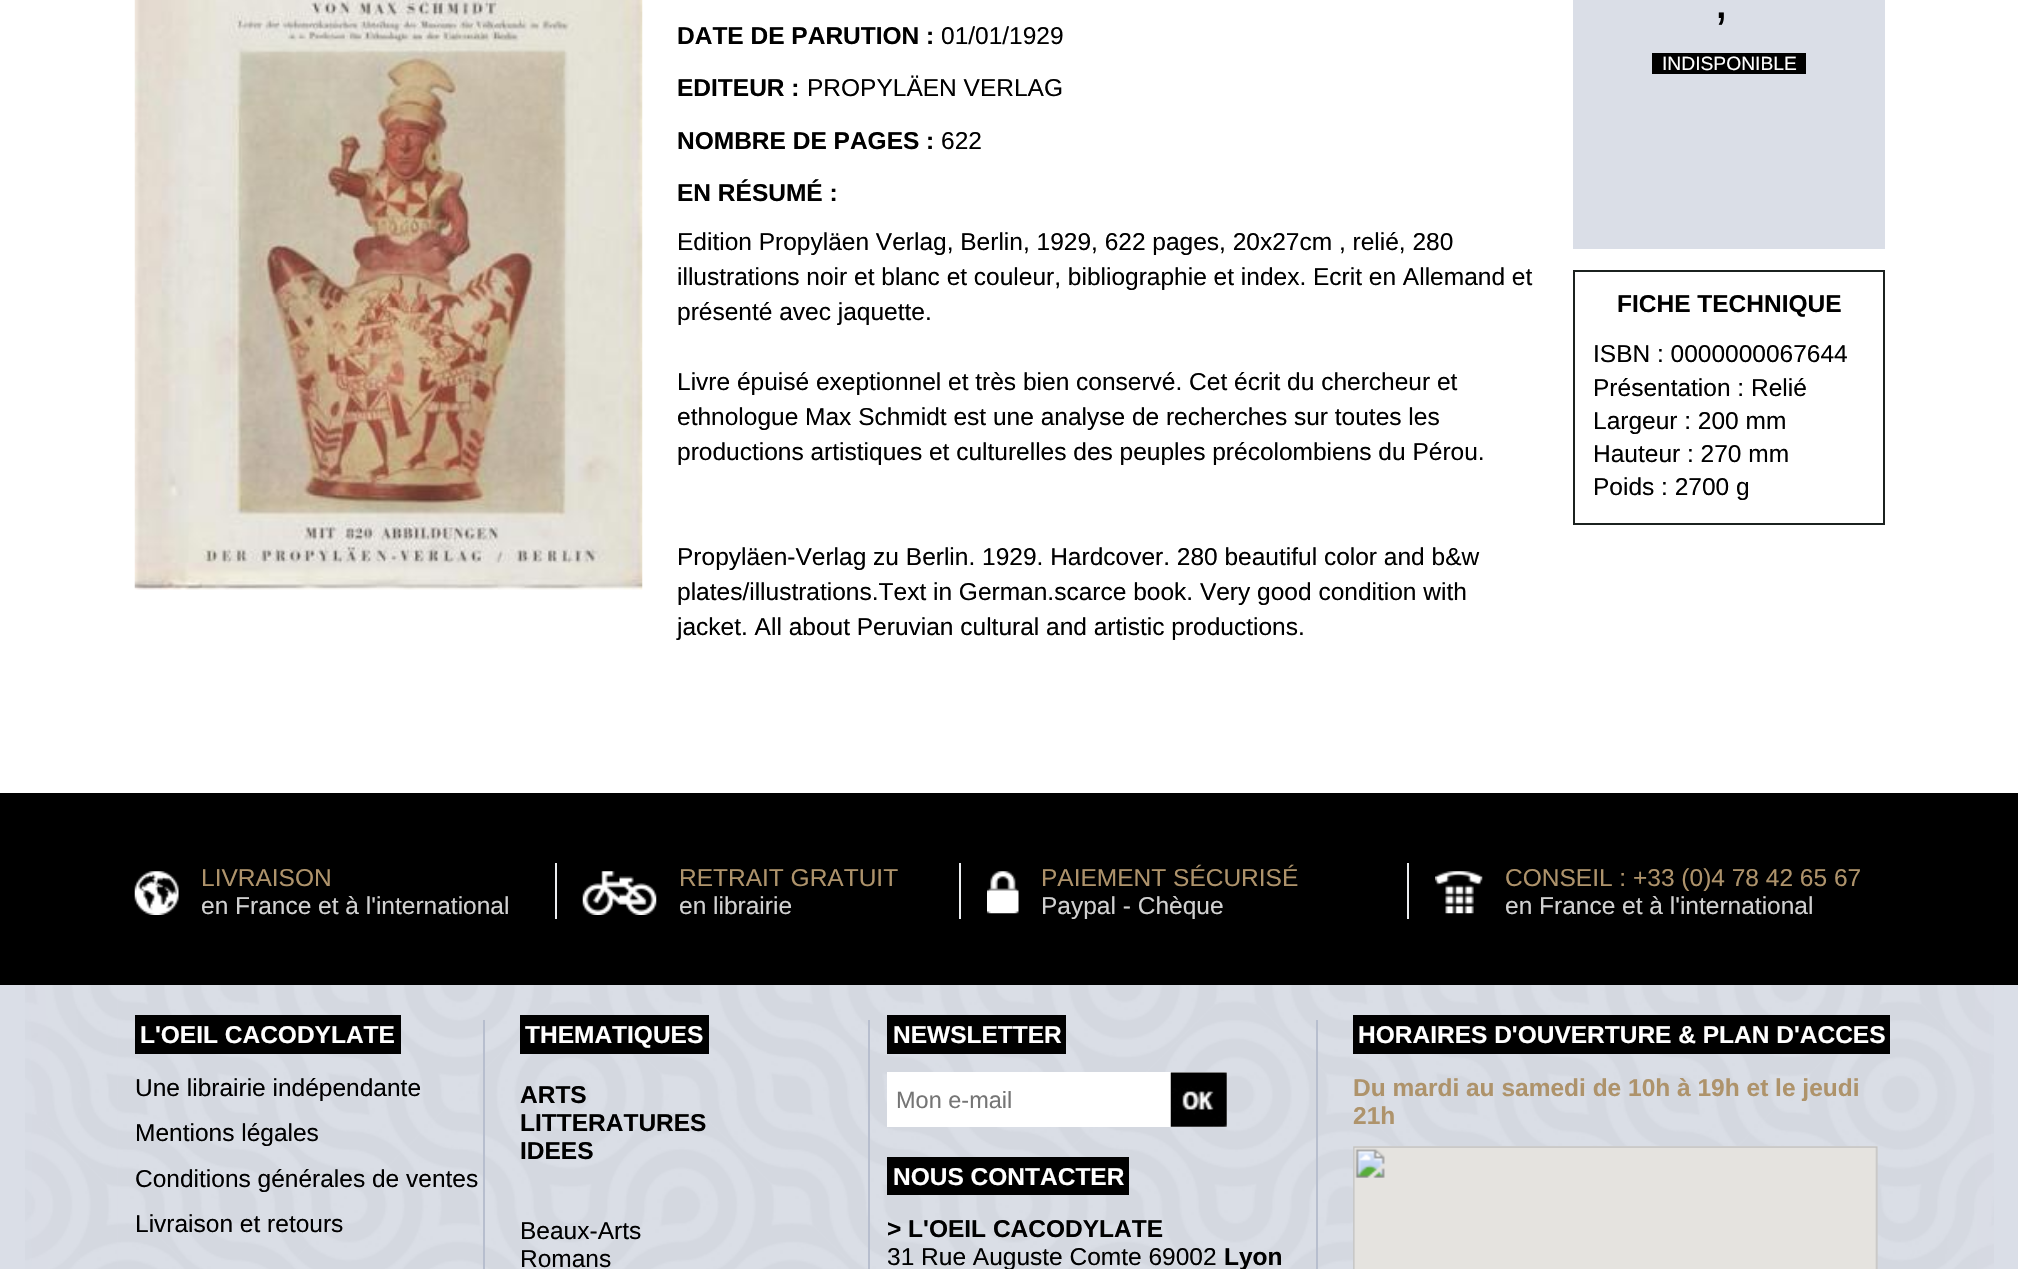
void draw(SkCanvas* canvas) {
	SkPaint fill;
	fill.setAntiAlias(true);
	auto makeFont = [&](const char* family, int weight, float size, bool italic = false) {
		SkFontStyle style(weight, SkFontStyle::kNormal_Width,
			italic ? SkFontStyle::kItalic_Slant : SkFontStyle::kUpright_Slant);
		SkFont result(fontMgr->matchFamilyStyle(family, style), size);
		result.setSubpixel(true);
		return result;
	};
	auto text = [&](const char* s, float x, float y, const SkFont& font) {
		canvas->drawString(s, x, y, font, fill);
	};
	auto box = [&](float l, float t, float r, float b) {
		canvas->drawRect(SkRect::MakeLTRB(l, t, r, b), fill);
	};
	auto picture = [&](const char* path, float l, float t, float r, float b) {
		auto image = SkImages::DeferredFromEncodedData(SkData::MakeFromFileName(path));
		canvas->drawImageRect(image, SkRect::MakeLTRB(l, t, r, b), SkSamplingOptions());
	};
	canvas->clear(0xFFFFFFFF);
	picture("image0.png", 134, 0, 643, 590);
	fill.setColor(0xFFDADEE7);
	box(1573, 0, 1885, 249);
	fill.setColor(0xFF000000);
	box(1652, 53, 1806, 74);
	fill.setStyle(SkPaint::kStroke_Style);
	fill.setStrokeWidth(2);
	fill.setColor(0xFF1B211F);
	canvas->drawRect(SkRect::MakeLTRB(1574, 271, 1884, 524), fill);
	fill.setStyle(SkPaint::kFill_Style);
	fill.setColor(0xFF000000);
	box(0, 793, 2018, 985);
	fill.setColor(0xFFECEEF1);
	box(555, 863, 557, 919);
	picture("image1.png", 134, 871, 179, 915);
	box(959, 863, 961, 919);
	picture("image2.png", 582, 871, 657, 915);
	box(1407, 863, 1409, 919);
	picture("image3.png", 987, 871, 1019, 914);
	picture("image4.png", 1435, 871, 1483, 914);
	fill.setColor(0xFFDADEE7);
	box(0, 985, 2018, 1269);
	picture("image5.png", 25, 985, 1994, 1269);
	box(117, 985, 1902, 1269);
	picture("image6.png", 117, 985, 1902, 1269);
	fill.setColor(0xFFB7BECE);
	box(483, 1020, 485, 1269);
	fill.setColor(0xFF000000);
	box(135, 1015, 401, 1054);
	fill.setColor(0xFFB7BECE);
	box(868, 1020, 870, 1269);
	fill.setColor(0xFF000000);
	box(520, 1015, 709, 1054);
	fill.setColor(0xFFB7BECE);
	box(1316, 1020, 1318, 1269);
	fill.setColor(0xFF000000);
	box(887, 1015, 1066, 1054);
	fill.setColor(0xFFFFFFFF);
	box(887, 1072, 1227, 1127);
	picture("image7.png", 1170, 1072, 1227, 1127);
	fill.setColor(0xFF000000);
	box(887, 1157, 1129, 1195);
	box(1353, 1015, 1890, 1054);
	picture("image8.png", 1353, 1146, 1878, 1269);
	auto font1 = makeFont("Liberation Sans", 700, 24.5f);
	text("DATE DE PARUTION :", 677, 44, font1);
	auto font2 = makeFont("Liberation Sans", 400, 24.5f);
	text("01/01/1929", 941, 44, font2);
	text("EDITEUR :", 677, 96, font1);
	text("PROPYLÄEN VERLAG", 807, 96, font2);
	text("NOMBRE DE PAGES :", 677, 149, font1);
	text("622", 941, 149, font2);
	text("EN RÉSUMÉ :", 677, 201, font1);
	text("Edition Propyläen Verlag, Berlin, 1929, 622 pages, 20x27cm , relié, 280", 677, 250, font2);
	text("illustrations noir et blanc et couleur, bibliographie et index. Ecrit en Allemand et", 677, 285, font2);
	text("présenté avec jaquette.", 677, 320, font2);
	text("Livre épuisé exeptionnel et très bien conservé. Cet écrit du chercheur et", 677, 390, font2);
	text("ethnologue Max Schmidt est une analyse de recherches sur toutes les", 677, 425, font2);
	text("productions artistiques et culturelles des peuples précolombiens du Pérou.", 677, 460, font2);
	text("Propyläen-Verlag zu Berlin. 1929. Hardcover. 280 beautiful color and b&w", 677, 565, font2);
	text("plates/illustrations.Text in German.scarce book. Very good condition with", 677, 600, font2);
	text("jacket. All about Peruvian cultural and artistic productions.", 677, 635, font2);
	auto font3 = makeFont("Liberation Sans", 400, 52);
	text(",", 1714, 18, font3);
	auto font4 = makeFont("Liberation Sans", 400, 19.25f);
	fill.setColor(0xFFFFFFFF);
	text("INDISPONIBLE", 1662, 70, font4);
	fill.setColor(0xFF000000);
	text("FICHE TECHNIQUE", 1617, 312, font1);
	text("ISBN : 0000000067644", 1593, 362, font2);
	text("Présentation : Relié", 1593, 396, font2);
	text("Largeur : 200 mm", 1593, 429, font2);
	text("Hauteur : 270 mm", 1593, 462, font2);
	text("Poids : 2700 g", 1593, 495, font2);
	fill.setColor(0xFFAE936B);
	text("LIVRAISON", 201, 886, font2);
	fill.setColor(0xFFD1D1D1);
	text("en France et à l'international", 201, 914, font2);
	fill.setColor(0xFFAE936B);
	text("RETRAIT GRATUIT", 679, 886, font2);
	fill.setColor(0xFFD1D1D1);
	text("en librairie", 679, 914, font2);
	fill.setColor(0xFFAE936B);
	text("PAIEMENT SÉCURISÉ", 1041, 886, font2);
	fill.setColor(0xFFD1D1D1);
	text("Paypal - Chèque", 1041, 914, font2);
	fill.setColor(0xFFAE936B);
	text("CONSEIL : +33 (0)4 78 42 65 67", 1505, 886, font2);
	fill.setColor(0xFFD1D1D1);
	text("en France et à l'international", 1505, 914, font2);
	fill.setColor(0xFFFFFFFF);
	text("L'OEIL CACODYLATE", 140, 1043, font1);
	fill.setColor(0xFF000000);
	text("Une librairie indépendante", 135, 1096, font2);
	text("Mentions légales", 135, 1141, font2);
	text("Conditions générales de ventes", 135, 1187, font2);
	text("Livraison et retours", 135, 1232, font2);
	fill.setColor(0xFFFFFFFF);
	text("THEMATIQUES", 525, 1043, font1);
	fill.setColor(0xFF000000);
	text("ARTS", 520, 1103, font1);
	text("LITTERATURES", 520, 1131, font1);
	text("IDEES", 520, 1159, font1);
	text("Beaux-Arts", 520, 1239, font2);
	text("Romans", 520, 1267, font2);
	fill.setColor(0xFFFFFFFF);
	text("NEWSLETTER", 893, 1043, font1);
	auto font5 = makeFont("Liberation Sans", 400, 23.5f);
	fill.setColor(0xFF757575);
	text("Mon e-mail", 896, 1108, font5);
	fill.setColor(0xFFFFFFFF);
	text("NOUS CONTACTER", 893, 1185, font1);
	fill.setColor(0xFF000000);
	text("> L'OEIL CACODYLATE", 887, 1237, font1);
	text("31 Rue Auguste Comte 69002", 887, 1265, font2);
	text("Lyon", 1224, 1265, font1);
	fill.setColor(0xFFFFFFFF);
	text("HORAIRES D'OUVERTURE & PLAN D'ACCES", 1358, 1043, font1);
	fill.setColor(0xFFAE936B);
	text("Du mardi au samedi de 10h à 19h et le jeudi", 1353, 1096, font1);
	text("21h", 1353, 1124, font1);
}
